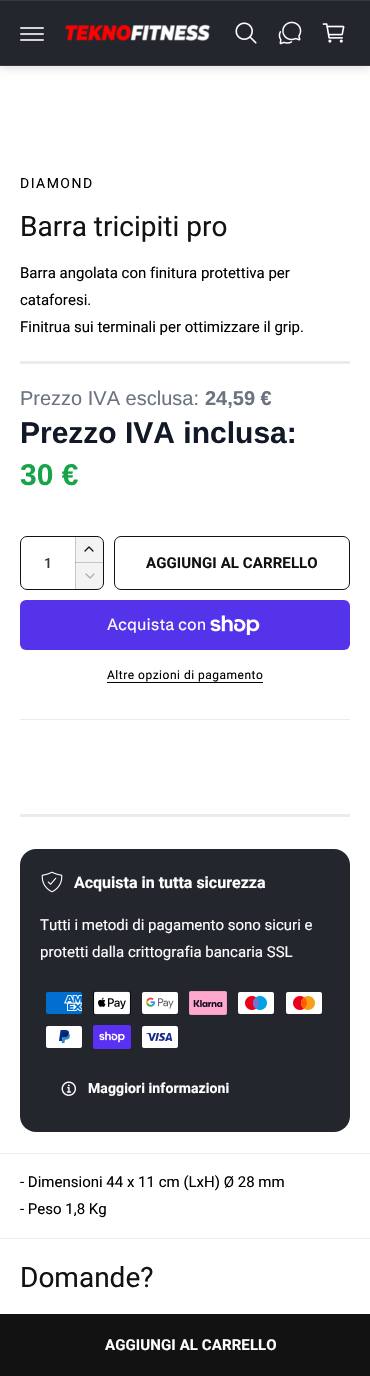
void draw(SkCanvas* canvas) {
	SkPaint fill;
	fill.setAntiAlias(true);
	auto makeFont = [&](const char* family, int weight, float size, bool italic = false) {
		SkFontStyle style(weight, SkFontStyle::kNormal_Width,
			italic ? SkFontStyle::kItalic_Slant : SkFontStyle::kUpright_Slant);
		SkFont result(fontMgr->matchFamilyStyle(family, style), size);
		result.setSubpixel(true);
		return result;
	};
	auto text = [&](const char* s, float x, float y, const SkFont& font) {
		canvas->drawString(s, x, y, font, fill);
	};
	auto spacedText = [&](const char* s, float x, float y, const SkFont& font, const SkPaint& ink, float letter, float word) {
		std::vector<SkGlyphID> glyphs(font.countText(s, strlen(s), SkTextEncoding::kUTF8));
		std::vector<float> xs(glyphs.size());
		font.textToGlyphs(s, strlen(s), SkTextEncoding::kUTF8, glyphs);
		font.getXPos(glyphs, xs, x);
		float extra = 0;
		for (size_t i = 0; i < glyphs.size(); i++) {
			xs[i] += extra;
			extra += letter + word * (glyphs[i] == font.unicharToGlyph(' '));
		}
		canvas->drawTextBlob(SkTextBlob::MakeFromPosHGlyphs(glyphs, xs, y, font), 0, 0, ink);
	};
	auto box = [&](float l, float t, float r, float b) {
		canvas->drawRect(SkRect::MakeLTRB(l, t, r, b), fill);
	};
	auto roundBox = [&](float l, float t, float r, float b, float radius) {
		canvas->drawRoundRect(SkRect::MakeLTRB(l, t, r, b), radius, radius, fill);
	};
	auto picture = [&](const char* path, float l, float t, float r, float b) {
		auto image = SkImages::DeferredFromEncodedData(SkData::MakeFromFileName(path));
		canvas->drawImageRect(image, SkRect::MakeLTRB(l, t, r, b), SkSamplingOptions());
	};
	canvas->clear(0xFFFFFFFF);
	fill.setColor(0x26000000);
	fill.setMaskFilter(SkMaskFilter::MakeBlur(kNormal_SkBlurStyle, 5));
	canvas->drawRect(SkRect::MakeLTRB(0, 1, 370, 67), fill);
	fill.setMaskFilter(nullptr);
	fill.setColor(0xFF23272D);
	box(0, 1, 370, 65);
	fill.setColor(0xFF35383E);
	box(0, 0, 370, 1);
	box(0, 65, 370, 66);
	fill.setStyle(SkPaint::kStroke_Style);
	fill.setStrokeWidth(2);
	fill.setStrokeCap(SkPaint::kRound_Cap);
	fill.setColor(0xFFD3D4D5);
	canvas->drawPath(SkPathBuilder().moveTo(21, 28).lineTo(43, 28).moveTo(21, 34).lineTo(43, 34).moveTo(21, 40).lineTo(43, 40).detach(), fill);
	picture("image0.png", 65, 24, 211, 41);
	picture("image1.png", 235, 22, 257, 44);
	picture("image2.png", 278, 21, 302, 45);
	picture("image3.png", 322, 23, 345, 43);
	fill.setStyle(SkPaint::kFill_Style);
	fill.setColor(0xFFEBEBEB);
	box(20, 361, 350, 364);
	fill.setColor(0xFFF3F3F3);
	canvas->drawPath(SkPathBuilder().moveTo(75, 536).lineTo(97, 536).cubicTo(100.5f, 536, 103, 538.5f, 103, 542).lineTo(103, 563).lineTo(75, 563).close().detach(), fill);
	fill.setColor(0xFFC6C6C6);
	box(75, 536, 76, 563);
	box(75, 562, 103, 563);
	fill.setColor(0xFFA2A2A2);
	box(75, 562, 76, 563);
	fill.setStyle(SkPaint::kStroke_Style);
	fill.setStrokeWidth(1.3f);
	fill.setStrokeJoin(SkPaint::kRound_Join);
	fill.setColor(0xFF121212);
	canvas->drawPath(SkPathBuilder().moveTo(93, 551).lineTo(89, 547).lineTo(85, 551).detach(), fill);
	fill.setStyle(SkPaint::kFill_Style);
	fill.setColor(0xFFF3F3F3);
	canvas->drawPath(SkPathBuilder().moveTo(75, 563).lineTo(103, 563).lineTo(103, 584).cubicTo(103, 587.5f, 100.5f, 590, 97, 590).lineTo(75, 590).close().detach(), fill);
	fill.setColor(0xFFC6C6C6);
	box(75, 563, 76, 590);
	fill.setStyle(SkPaint::kStroke_Style);
	fill.setColor(0xFFAFAFAF);
	canvas->drawPath(SkPathBuilder().moveTo(86, 574).lineTo(90, 578).lineTo(94, 574).detach(), fill);
	fill.setStrokeWidth(1);
	fill.setStrokeCap(SkPaint::kButt_Cap);
	fill.setStrokeJoin(SkPaint::kMiter_Join);
	fill.setColor(0xFFFFFFFF);
	canvas->drawRoundRect(SkRect::MakeLTRB(20.5f, 536.5f, 103.5f, 589.5f), 6.5f, 6.5f, fill);
	fill.setColor(0xFF121212);
	canvas->drawRoundRect(SkRect::MakeLTRB(20.5f, 536.5f, 103.5f, 589.5f), 6.5f, 6.5f, fill);
	canvas->drawRoundRect(SkRect::MakeLTRB(114.5f, 536.5f, 349.5f, 589.5f), 6.5f, 6.5f, fill);
	fill.setStyle(SkPaint::kFill_Style);
	fill.setColor(0xFF5433EB);
	roundBox(20, 600, 350, 650, 6);
	picture("image4.png", 210, 615, 260, 635);
	fill.setColor(0xFF000000);
	box(107, 682, 263, 683);
	fill.setColor(0xFFEBEBEB);
	box(20, 719, 350, 720);
	box(20, 814, 350, 817);
	fill.setColor(0xFF23272D);
	roundBox(20, 849, 350, 1132, 16);
	picture("image5.png", 41, 871, 63, 893);
	picture("image6.png", 46, 992, 82, 1014);
	picture("image7.png", 93, 991, 131, 1015);
	picture("image8.png", 142, 992, 178, 1014);
	picture("image9.png", 189, 991, 227, 1015);
	picture("image10.png", 238, 992, 274, 1014);
	picture("image11.png", 286, 992, 322, 1014);
	picture("image12.png", 46, 1026, 82, 1048);
	picture("image13.png", 93, 1025, 131, 1049);
	picture("image14.png", 142, 1026, 178, 1048);
	picture("image15.png", 61, 1081, 76, 1096);
	fill.setColor(0xFF121212);
	box(0, 1314, 370, 1376);
	fill.setColor(0xFFEBEBEB);
	box(0, 1153, 370, 1154);
	box(0, 1238, 370, 1239);
	auto font1 = makeFont("Roboto", 400, 14);
	fill.setColor(0xFF000000);
	spacedText("DIAMOND", 20, 188, font1, fill, 1.5f, 0);
	auto font2 = makeFont("Roboto", 400, 28);
	fill.setColor(0xFF121212);
	text("Barra tricipiti pro", 20, 236, font2);
	auto font3 = makeFont("Roboto", 400, 15);
	fill.setColor(0xFF000000);
	text("Barra angolata con finitura protettiva per", 20, 278, font3);
	text("cataforesi.", 20, 305, font3);
	text("Finitrua sui terminali per ottimizzare il grip.", 20, 332, font3);
	auto font4 = makeFont("Liberation Sans", 400, 20);
	fill.setColor(0xFF6B7280);
	text("Prezzo IVA esclusa:", 20, 405, font4);
	auto font5 = makeFont("Liberation Sans", 700, 20);
	text("24,59 €", 205, 405, font5);
	auto font6 = makeFont("Liberation Sans", 700, 30);
	fill.setColor(0xFF111827);
	text("Prezzo IVA inclusa:", 20, 443, font6);
	fill.setColor(0xFF16A34A);
	text("30 €", 20, 485, font6);
	auto font7 = makeFont("Roboto", 500, 14);
	fill.setColor(0xFF363636);
	text("1", 44, 568, font7);
	auto font8 = makeFont("Roboto", 700, 15);
	fill.setColor(0xFF121212);
	spacedText("AGGIUNGI AL CARRELLO", 146, 568, font8, fill, 0.1f, 0);
	auto font9 = makeFont("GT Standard", 400, 16);
	fill.setColor(0xFFFFFFFF);
	text("Acquista con", 107, 630, font9);
	auto font10 = makeFont("Roboto", 400, 12);
	fill.setColor(0xFF000000);
	spacedText("Altre opzioni di pagamento", 107, 679, font10, fill, 0.5f, 0);
	auto font11 = makeFont("Roboto", 700, 16);
	fill.setColor(0xFFFFFFFF);
	text("Acquista in tutta sicurezza", 74, 888, font11);
	text("Tutti i metodi di pagamento sono sicuri e", 40, 930, font3);
	text("protetti dalla crittografia bancaria SSL", 40, 957, font3);
	auto font12 = makeFont("Roboto", 700, 14);
	spacedText("Maggiori informazioni", 88, 1093, font12, fill, 0.1f, 0);
	spacedText("AGGIUNGI AL CARRELLO", 105, 1350, font8, fill, 0.1f, 0);
	fill.setColor(0xFF000000);
	text("- Dimensioni 44 x 11 cm (LxH) Ø 28 mm", 20, 1187, font3);
	text("- Peso 1,8 Kg", 20, 1214, font3);
	fill.setColor(0xFF121212);
	text("Domande?", 20, 1287, font2);
}
